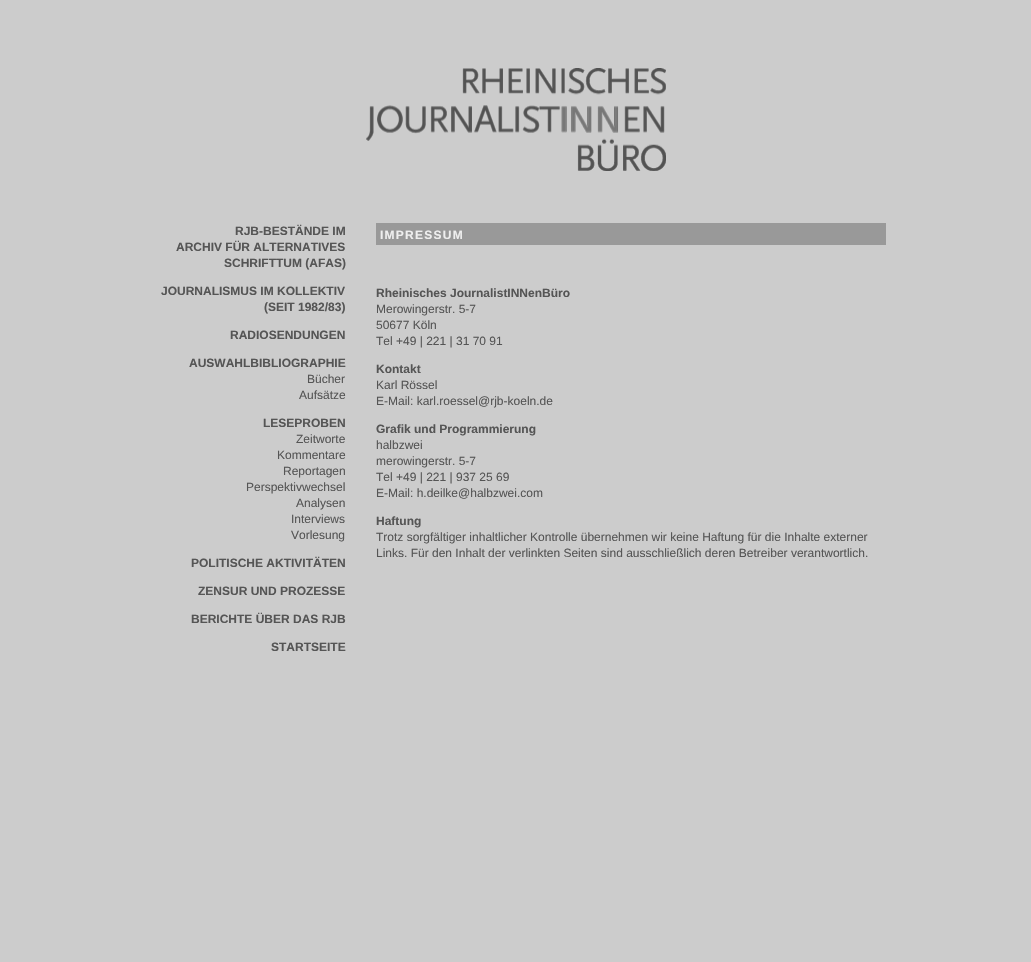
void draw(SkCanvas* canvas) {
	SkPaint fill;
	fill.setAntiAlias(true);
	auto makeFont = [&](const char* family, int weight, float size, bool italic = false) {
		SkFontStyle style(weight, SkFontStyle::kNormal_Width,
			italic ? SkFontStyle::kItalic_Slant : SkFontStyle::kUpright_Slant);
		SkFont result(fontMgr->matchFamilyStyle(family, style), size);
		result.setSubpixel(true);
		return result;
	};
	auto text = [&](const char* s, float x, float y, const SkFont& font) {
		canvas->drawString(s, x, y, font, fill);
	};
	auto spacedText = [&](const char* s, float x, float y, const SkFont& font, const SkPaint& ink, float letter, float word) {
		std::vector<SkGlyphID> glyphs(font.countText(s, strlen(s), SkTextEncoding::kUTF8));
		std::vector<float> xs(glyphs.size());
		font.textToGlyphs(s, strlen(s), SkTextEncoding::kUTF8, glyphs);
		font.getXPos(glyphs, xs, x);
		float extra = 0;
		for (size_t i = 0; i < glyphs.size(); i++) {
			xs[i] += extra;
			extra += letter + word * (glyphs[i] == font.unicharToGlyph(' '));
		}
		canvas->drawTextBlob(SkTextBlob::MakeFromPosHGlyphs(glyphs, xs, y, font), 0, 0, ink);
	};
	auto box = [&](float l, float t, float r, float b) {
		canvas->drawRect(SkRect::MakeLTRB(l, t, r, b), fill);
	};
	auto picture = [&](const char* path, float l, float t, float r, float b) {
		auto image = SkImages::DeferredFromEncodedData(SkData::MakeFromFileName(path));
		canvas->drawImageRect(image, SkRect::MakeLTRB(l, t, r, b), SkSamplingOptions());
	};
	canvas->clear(0xFFCCCCCC);
	picture("image0.png", 366, 68, 666, 171);
	fill.setColor(0xFF999999);
	box(376, 223, 886, 245);
	auto font1 = makeFont("Liberation Sans", 700, 12);
	fill.setColor(0xFF555555);
	text("RJB-BESTÄNDE IM", 235, 235, font1);
	text("ARCHIV FÜR ALTERNATIVES", 176, 251, font1);
	text("SCHRIFTTUM (AFAS)", 224, 267, font1);
	text("JOURNALISMUS IM KOLLEKTIV", 161, 295, font1);
	text("(SEIT 1982/83)", 264, 311, font1);
	text("RADIOSENDUNGEN", 230, 339, font1);
	text("AUSWAHLBIBLIOGRAPHIE", 189, 367, font1);
	auto font2 = makeFont("Liberation Sans", 400, 12);
	text("Bücher", 307, 383, font2);
	text("Aufsätze", 299, 399, font2);
	text("LESEPROBEN", 263, 427, font1);
	text("Zeitworte", 296, 443, font2);
	text("Kommentare", 277, 459, font2);
	text("Reportagen", 283, 475, font2);
	text("Perspektivwechsel", 246, 491, font2);
	text("Analysen", 296, 507, font2);
	text("Interviews", 291, 523, font2);
	text("Vorlesung", 291, 539, font2);
	text("POLITISCHE AKTIVITÄTEN", 191, 567, font1);
	text("ZENSUR UND PROZESSE", 198, 595, font1);
	text("BERICHTE ÜBER DAS RJB", 191, 623, font1);
	text("STARTSEITE", 271, 651, font1);
	fill.setColor(0xFFEEEEEE);
	spacedText("IMPRESSUM", 380, 239, font1, fill, 1.25f, 0);
	fill.setColor(0xFF555555);
	text("Rheinisches JournalistINNenBüro", 376, 297, font1);
	text("Merowingerstr. 5-7", 376, 313, font2);
	text("50677 Köln", 376, 329, font2);
	text("Tel +49 | 221 | 31 70 91", 376, 345, font2);
	text("Kontakt", 376, 373, font1);
	text("Karl Rössel", 376, 389, font2);
	text("E-Mail: karl.roessel@rjb-koeln.de", 376, 405, font2);
	text("Grafik und Programmierung", 376, 433, font1);
	text("halbzwei", 376, 449, font2);
	text("merowingerstr. 5-7", 376, 465, font2);
	text("Tel +49 | 221 | 937 25 69", 376, 481, font2);
	text("E-Mail: h.deilke@halbzwei.com", 376, 497, font2);
	text("Haftung", 376, 525, font1);
	text("Trotz sorgfältiger inhaltlicher Kontrolle übernehmen wir keine Haftung für die Inhalte externer", 376, 541, font2);
	text("Links. Für den Inhalt der verlinkten Seiten sind ausschließlich deren Betreiber verantwortlich.", 376, 557, font2);
}
